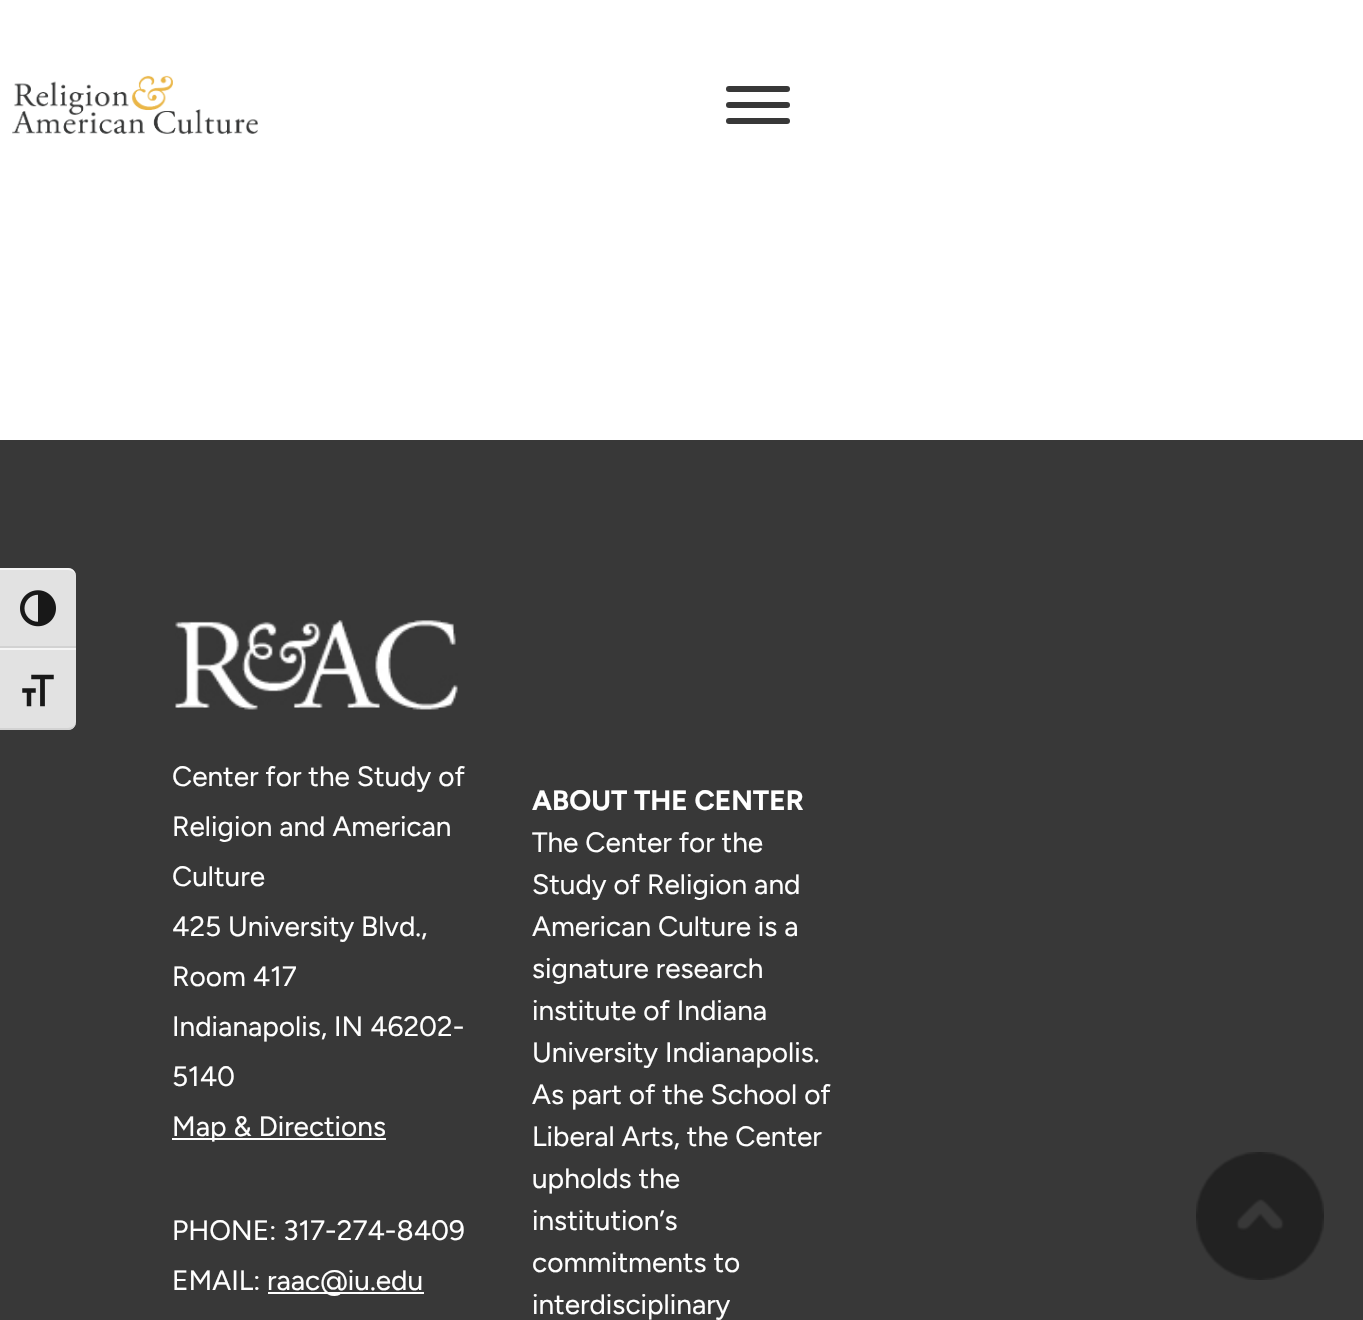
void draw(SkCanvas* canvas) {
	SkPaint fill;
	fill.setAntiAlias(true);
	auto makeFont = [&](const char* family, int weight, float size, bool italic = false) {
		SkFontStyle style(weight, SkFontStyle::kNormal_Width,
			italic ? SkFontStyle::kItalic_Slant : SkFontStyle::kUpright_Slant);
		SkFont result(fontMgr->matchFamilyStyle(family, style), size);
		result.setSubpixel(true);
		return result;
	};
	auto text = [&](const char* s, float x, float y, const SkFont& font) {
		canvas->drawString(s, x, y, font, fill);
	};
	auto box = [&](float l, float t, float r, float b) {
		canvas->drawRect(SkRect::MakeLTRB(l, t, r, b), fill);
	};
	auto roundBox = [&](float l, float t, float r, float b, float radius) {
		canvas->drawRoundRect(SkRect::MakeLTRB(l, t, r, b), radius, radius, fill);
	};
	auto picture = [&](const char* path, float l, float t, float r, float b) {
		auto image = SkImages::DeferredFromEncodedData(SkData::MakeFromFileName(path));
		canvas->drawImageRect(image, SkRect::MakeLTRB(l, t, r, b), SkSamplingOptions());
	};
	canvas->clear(0xFFFFFFFF);
	fill.setColor(0xFF383838);
	box(0, 440, 1363, 1320);
	fill.setColor(0xFFE2E2E2);
	canvas->drawPath(SkPathBuilder().moveTo(0, 568).lineTo(68, 568).cubicTo(72.5f, 568, 76, 571.5f, 76, 576).lineTo(76, 648).lineTo(0, 648).close().detach(), fill);
	fill.setColor(0xFFF5F5F5);
	canvas->drawPath(SkPathBuilder().moveTo(0, 568).lineTo(0, 570).lineTo(68, 570).cubicTo(72, 570, 76, 573, 76, 576).cubicTo(76, 572, 72, 568, 68, 568).close().detach(), fill);
	fill.setColor(0xFFD2D2D2);
	box(0, 646, 76, 648);
	picture("image0.png", 20, 590, 56, 627);
	fill.setColor(0xFFE2E2E2);
	canvas->drawPath(SkPathBuilder().moveTo(0, 648).lineTo(76, 648).lineTo(76, 722).cubicTo(76, 726.5f, 72.5f, 730, 68, 730).lineTo(0, 730).close().detach(), fill);
	fill.setColor(0xFFF5F5F5);
	box(0, 648, 76, 650);
	fill.setColor(0xFFD2D2D2);
	canvas->drawPath(SkPathBuilder().moveTo(0, 728).lineTo(0, 730).lineTo(68, 730).cubicTo(72, 730, 76, 726, 76, 722).cubicTo(76, 725, 72, 728, 68, 728).close().detach(), fill);
	picture("image1.png", 22, 674, 54, 707);
	picture("image2.png", 12, 75, 258, 135);
	fill.setColor(0xFF383838);
	roundBox(726, 86, 790, 92, 3);
	roundBox(726, 102, 790, 108, 3);
	roundBox(726, 118, 790, 124, 3);
	picture("image3.png", 175, 620, 458, 710);
	fill.setColor(0xFFFFFFFF);
	box(172, 1138, 386, 1140);
	box(268, 1292, 424, 1294);
	picture("image4.png", 1196, 1152, 1324, 1280);
	auto font1 = makeFont("Figtree", 400, 28);
	text("Center for the Study of", 172, 786, font1);
	text("Religion and American", 172, 836, font1);
	text("Culture", 172, 886, font1);
	text("425 University Blvd.,", 172, 936, font1);
	text("Room 417", 172, 986, font1);
	text("Indianapolis, IN 46202-", 172, 1036, font1);
	text("5140", 172, 1086, font1);
	text("Map & Directions", 172, 1136, font1);
	text("PHONE: 317-274-8409", 172, 1240, font1);
	text("EMAIL:", 172, 1290, font1);
	text("raac@iu.edu", 267, 1290, font1);
	auto font2 = makeFont("Figtree", 700, 28);
	text("ABOUT THE CENTER", 532, 810, font2);
	text("The Center for the", 532, 852, font1);
	text("Study of Religion and", 532, 894, font1);
	text("American Culture is a", 532, 936, font1);
	text("signature research", 532, 978, font1);
	text("institute of Indiana", 532, 1020, font1);
	text("University Indianapolis.", 532, 1062, font1);
	text("As part of the School of", 532, 1104, font1);
	text("Liberal Arts, the Center", 532, 1146, font1);
	text("upholds the", 532, 1188, font1);
	text("institution’s", 532, 1230, font1);
	text("commitments to", 532, 1272, font1);
	text("interdisciplinary", 532, 1314, font1);
}
